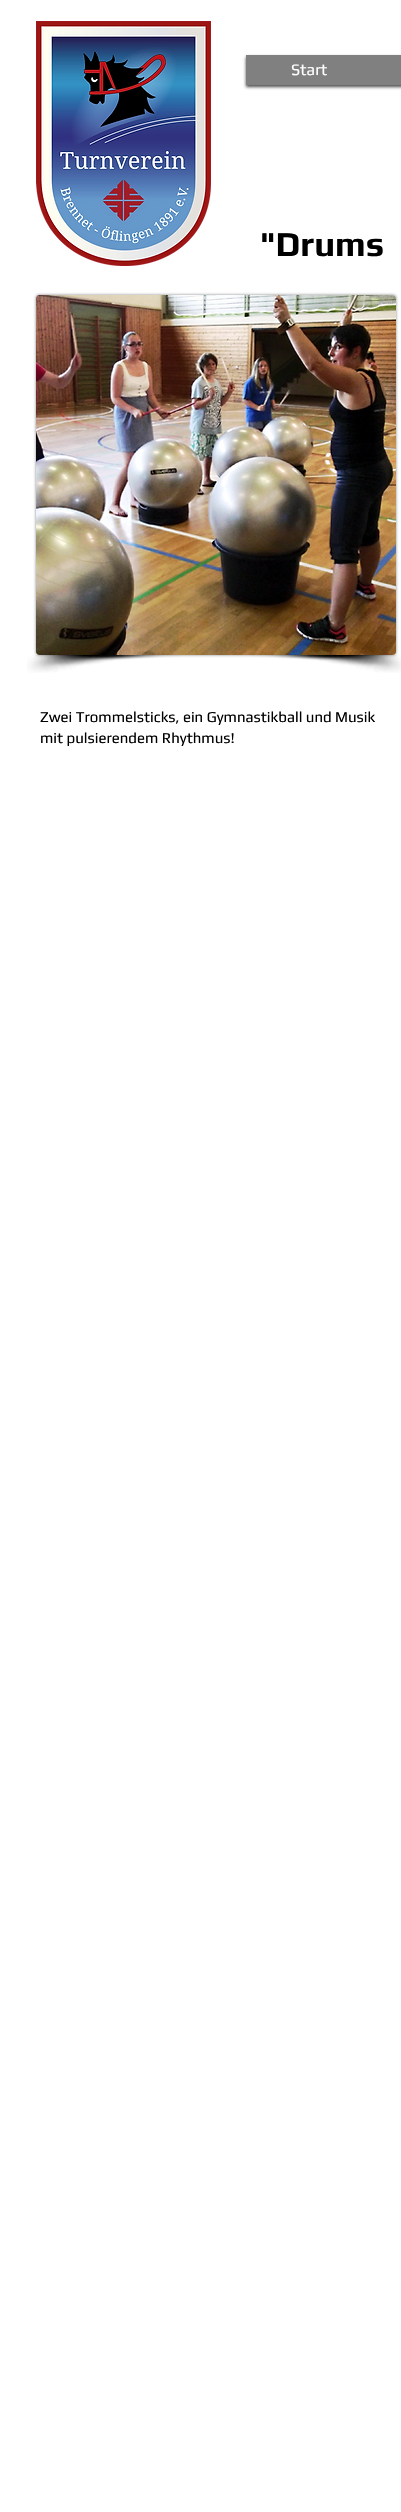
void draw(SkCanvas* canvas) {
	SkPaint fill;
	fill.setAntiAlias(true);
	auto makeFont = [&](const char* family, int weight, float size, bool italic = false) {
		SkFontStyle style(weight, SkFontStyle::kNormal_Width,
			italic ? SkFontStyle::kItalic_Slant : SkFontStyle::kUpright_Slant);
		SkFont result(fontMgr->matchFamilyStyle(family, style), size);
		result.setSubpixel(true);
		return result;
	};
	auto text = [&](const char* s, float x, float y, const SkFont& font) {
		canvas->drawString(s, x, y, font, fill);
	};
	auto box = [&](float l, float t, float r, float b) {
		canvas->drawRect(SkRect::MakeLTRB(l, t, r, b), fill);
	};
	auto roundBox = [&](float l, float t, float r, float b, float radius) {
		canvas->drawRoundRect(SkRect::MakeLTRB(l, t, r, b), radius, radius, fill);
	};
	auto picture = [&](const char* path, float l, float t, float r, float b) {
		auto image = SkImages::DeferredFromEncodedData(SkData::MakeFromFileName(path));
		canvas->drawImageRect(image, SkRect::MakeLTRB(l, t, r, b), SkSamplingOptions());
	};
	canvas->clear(0xFFFFFFFF);
	picture("image0.png", 36, 21, 211, 266);
	fill.setColor(0xB3000000);
	fill.setMaskFilter(SkMaskFilter::MakeBlur(kNormal_SkBlurStyle, 1.5f));
	canvas->drawRect(SkRect::MakeLTRB(246, 57, 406, 87), fill);
	fill.setMaskFilter(nullptr);
	fill.setColor(0xFF808080);
	box(246, 55, 401, 85);
	fill.setColor(0x80000000);
	fill.setMaskFilter(SkMaskFilter::MakeBlur(kNormal_SkBlurStyle, 1.5f));
	canvas->drawRoundRect(SkRect::MakeLTRB(36, 295, 396, 655), 3, 3, fill);
	fill.setMaskFilter(nullptr);
	fill.setColor(0xFFFFFFFF);
	roundBox(36, 295, 396, 655, 3);
	picture("image1.png", 36, 295, 396, 655);
	picture("image2.png", 27, 655, 181, 673);
	picture("image3.png", 251, 655, 401, 673);
	auto font1 = makeFont("Play", 400, 16);
	text("Start", 291, 75, font1);
	auto font2 = makeFont("Play", 700, 35);
	fill.setColor(0xFF000000);
	text("\"Drums", 260, 256, font2);
	auto font3 = makeFont("Play", 400, 15);
	text("Zwei Trommelsticks, ein Gymnastikball und Musik", 40, 722, font3);
	text("mit pulsierendem Rhythmus!", 40, 743, font3);
}
